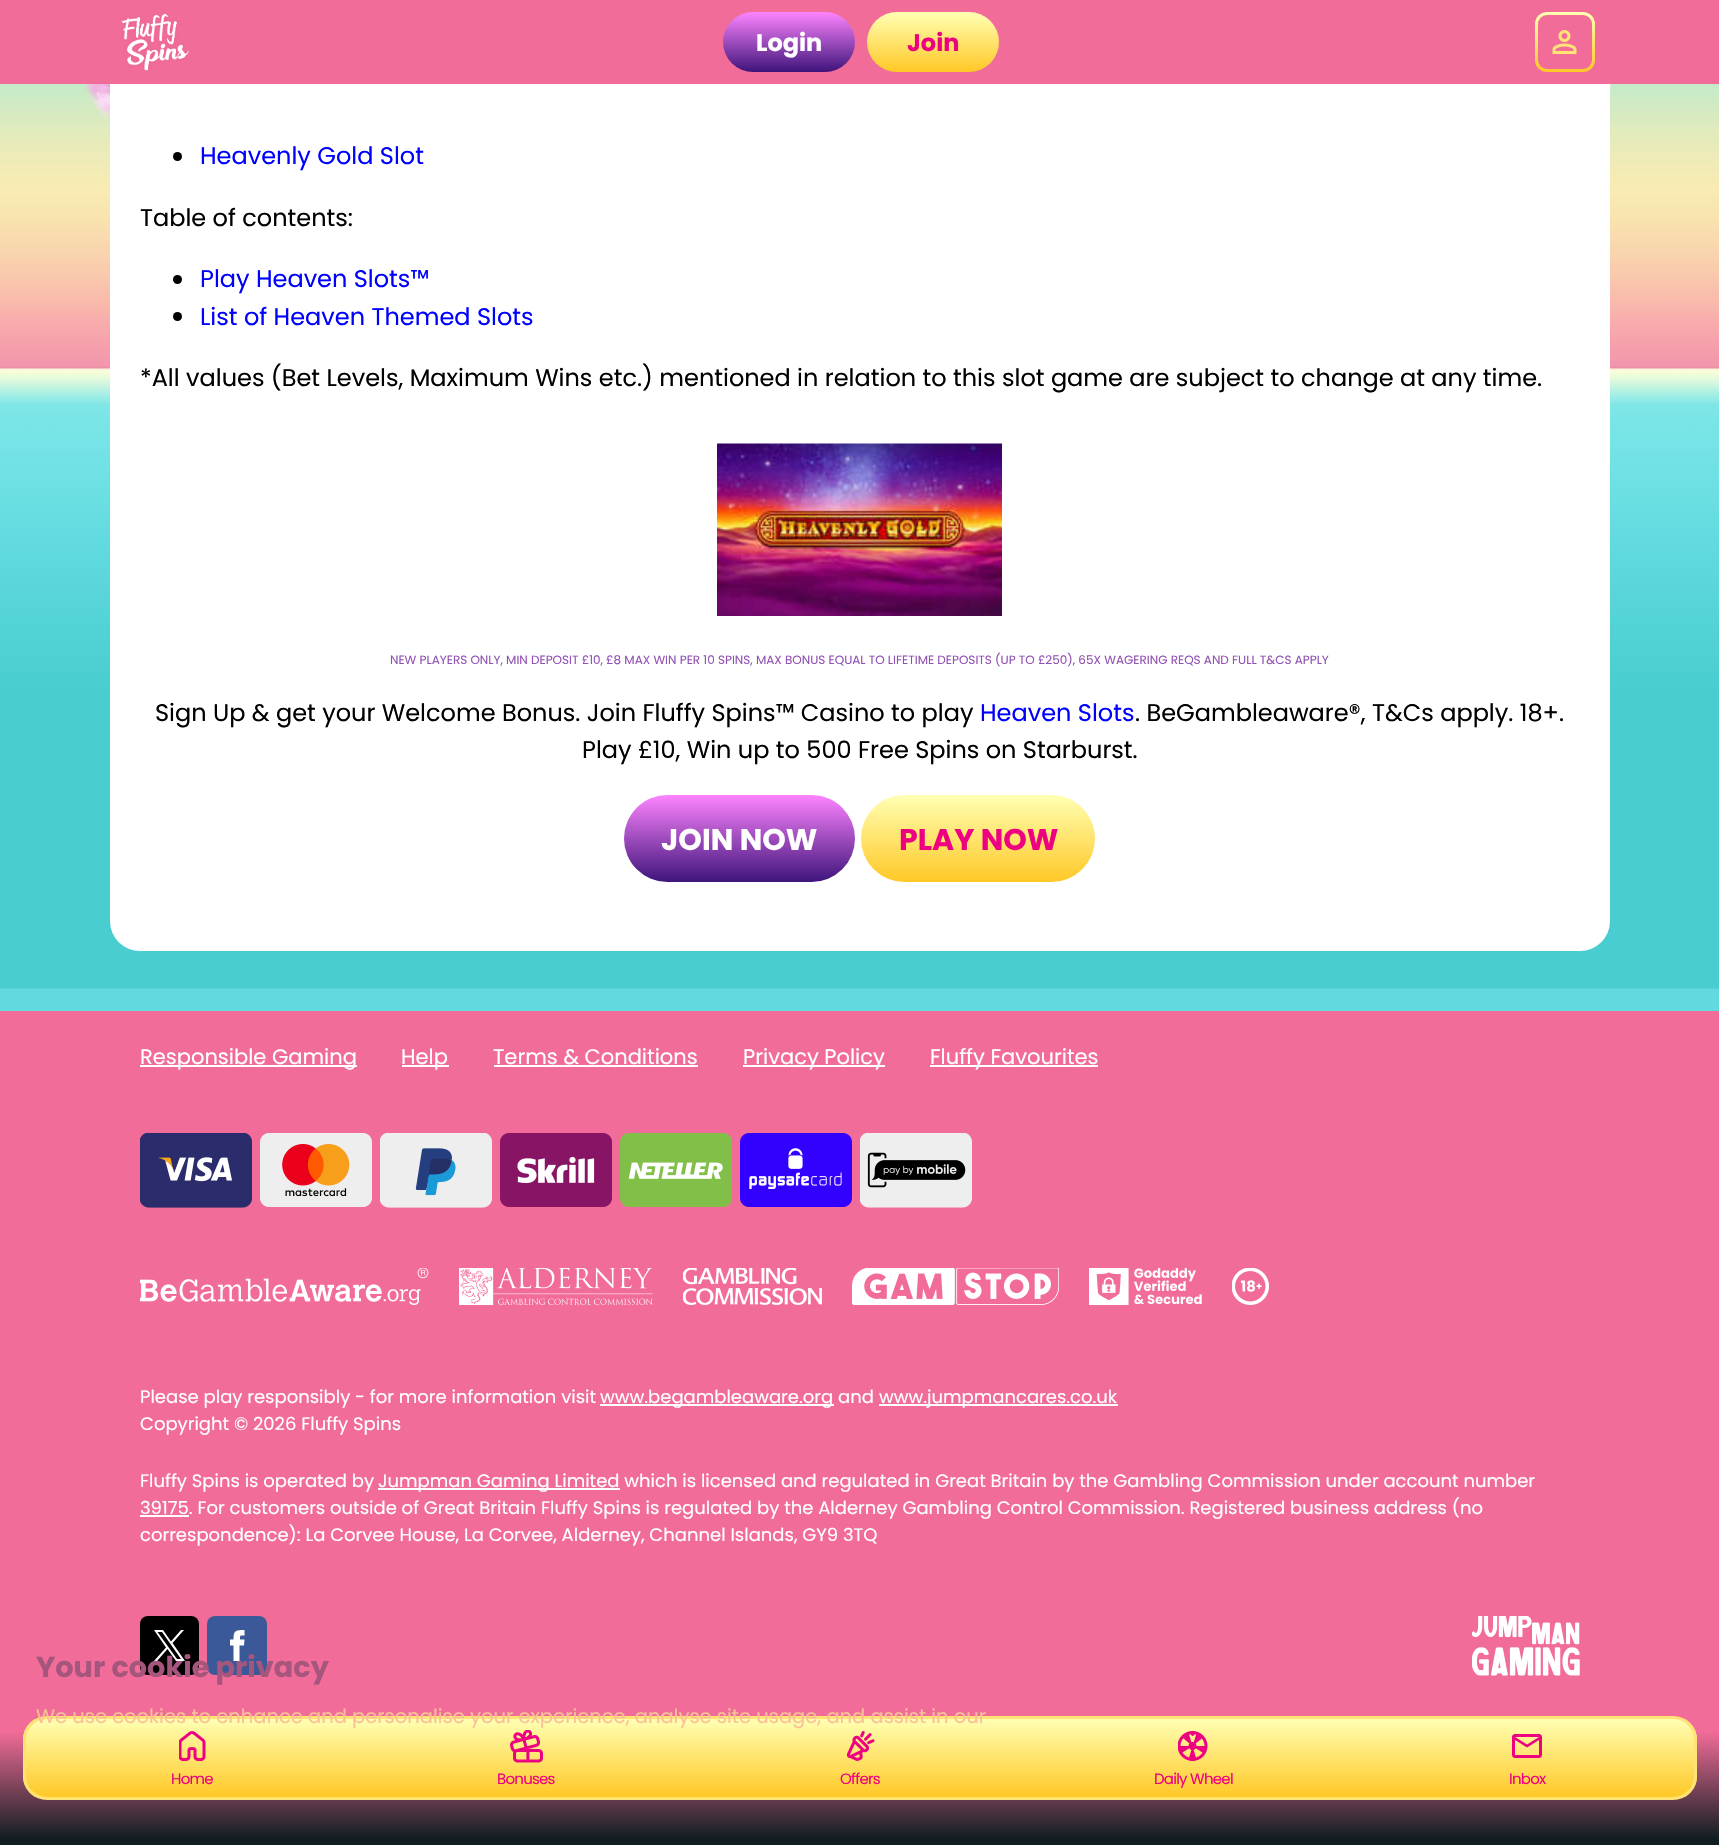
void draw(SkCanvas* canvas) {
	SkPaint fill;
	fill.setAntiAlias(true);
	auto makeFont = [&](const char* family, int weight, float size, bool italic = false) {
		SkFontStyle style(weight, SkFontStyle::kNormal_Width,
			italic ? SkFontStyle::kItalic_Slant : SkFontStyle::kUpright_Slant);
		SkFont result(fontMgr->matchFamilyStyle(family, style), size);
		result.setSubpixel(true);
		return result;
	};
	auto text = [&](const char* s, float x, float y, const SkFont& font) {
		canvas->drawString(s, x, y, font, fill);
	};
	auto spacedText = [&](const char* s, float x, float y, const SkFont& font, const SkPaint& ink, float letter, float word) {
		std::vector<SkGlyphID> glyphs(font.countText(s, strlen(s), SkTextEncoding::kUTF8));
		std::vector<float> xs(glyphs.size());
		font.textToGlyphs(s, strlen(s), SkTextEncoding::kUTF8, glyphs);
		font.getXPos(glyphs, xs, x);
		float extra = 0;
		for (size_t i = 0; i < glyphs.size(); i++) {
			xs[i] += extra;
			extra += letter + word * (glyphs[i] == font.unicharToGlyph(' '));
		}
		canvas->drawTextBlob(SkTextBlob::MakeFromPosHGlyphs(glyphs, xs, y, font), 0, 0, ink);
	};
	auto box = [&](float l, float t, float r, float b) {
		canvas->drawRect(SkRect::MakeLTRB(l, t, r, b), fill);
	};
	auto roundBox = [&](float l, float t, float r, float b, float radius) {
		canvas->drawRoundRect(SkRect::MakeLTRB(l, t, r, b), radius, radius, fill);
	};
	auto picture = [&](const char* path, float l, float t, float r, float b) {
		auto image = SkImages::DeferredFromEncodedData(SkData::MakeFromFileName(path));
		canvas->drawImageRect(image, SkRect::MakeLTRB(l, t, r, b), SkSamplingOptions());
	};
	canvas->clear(0xFF60DADF);
	picture("image0.png", 0, 84, 1719, 989);
	fill.setColor(0xFFFFFFFF);
	roundBox(110, -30, 1610, 951, 30);
	fill.setColor(0xFFF26C99);
	box(0, 0, 1719, 84);
	picture("image1.png", 121, 13, 189, 71);
	{
		const SkColor colors[] = {0xFFFE84FF, 0xFF3E147B};
		const float stops[] = {0, 1};
		const SkPoint ends[] = {{789, 12}, {789, 72}};
		fill.setShader(SkGradientShader::MakeLinear(ends, colors, stops, 2, SkTileMode::kClamp));
		fill.setAlpha(255);
	}
	roundBox(723, 12, 855, 72, 30);
	{
		const SkColor colors[] = {0xFFFFFFB3, 0xFFFFC826};
		const float stops[] = {0, 1};
		const SkPoint ends[] = {{933, 12}, {933, 72}};
		fill.setShader(SkGradientShader::MakeLinear(ends, colors, stops, 2, SkTileMode::kClamp));
		fill.setAlpha(255);
	}
	roundBox(867, 12, 999, 72, 30);
	{
		const SkColor colors[] = {0xFFFFFFB3, 0xFFFFC826};
		const float stops[] = {0, 1};
		const SkPoint ends[] = {{1565, 12}, {1565, 72}};
		fill.setShader(SkGradientShader::MakeLinear(ends, colors, stops, 2, SkTileMode::kClamp));
		fill.setAlpha(255);
	}
	roundBox(1535, 12, 1595, 72, 12);
	fill.setShader(nullptr);
	fill.setColor(0xFFF26C99);
	roundBox(1538, 15, 1592, 69, 9);
	picture("image2.png", 1552, 30, 1577, 54);
	fill.setColor(0xFF000000);
	canvas->drawCircle(177.5f, 156.5f, 4.5f, fill);
	canvas->drawCircle(177.5f, 279.5f, 4.5f, fill);
	canvas->drawCircle(177.5f, 316.5f, 4.5f, fill);
	picture("image3.png", 717, 443, 1002, 616);
	{
		const SkColor colors[] = {0xFFFE84FF, 0xFF3E147B};
		const float stops[] = {0, 1};
		const SkPoint ends[] = {{740, 795}, {740, 882}};
		fill.setShader(SkGradientShader::MakeLinear(ends, colors, stops, 2, SkTileMode::kClamp));
		fill.setAlpha(255);
	}
	roundBox(624, 795, 855, 882, 43.5f);
	{
		const SkColor colors[] = {0xFFFFFFB3, 0xFFFFC826};
		const float stops[] = {0, 1};
		const SkPoint ends[] = {{978, 795}, {978, 882}};
		fill.setShader(SkGradientShader::MakeLinear(ends, colors, stops, 2, SkTileMode::kClamp));
		fill.setAlpha(255);
	}
	roundBox(861, 795, 1095, 882, 43.5f);
	fill.setShader(nullptr);
	fill.setColor(0xFFF26C99);
	box(0, 1011, 1719, 1716);
	fill.setColor(0xFFFFFFFF);
	box(140, 1065, 357, 1067);
	box(402, 1065, 449, 1067);
	box(494, 1065, 698, 1067);
	box(743, 1065, 885, 1067);
	box(930, 1065, 1098, 1067);
	picture("image4.png", 140, 1133, 252, 1208);
	picture("image5.png", 260, 1133, 372, 1207);
	picture("image6.png", 380, 1133, 492, 1208);
	picture("image7.png", 500, 1133, 612, 1207);
	picture("image8.png", 620, 1133, 732, 1207);
	picture("image9.png", 740, 1133, 852, 1207);
	picture("image10.png", 860, 1133, 972, 1208);
	picture("image11.png", 140, 1268, 429, 1305);
	picture("image12.png", 459, 1268, 653, 1305);
	picture("image13.png", 683, 1268, 822, 1305);
	picture("image14.png", 852, 1268, 1059, 1305);
	picture("image15.png", 1089, 1268, 1202, 1305);
	picture("image16.png", 1232, 1268, 1269, 1305);
	box(600, 1404, 834, 1406);
	box(879, 1404, 1118, 1406);
	box(378, 1488, 620, 1490);
	box(140, 1515, 189, 1517);
	fill.setColor(0xFF000000);
	roundBox(140, 1616, 199, 1675, 8);
	fill.setColor(0xFFFFFFFF);
	canvas->drawPath(SkPathBuilder().moveTo(172.5f, 1643).lineTo(184, 1630).lineTo(181, 1630).lineTo(171, 1641.5f).lineTo(163, 1630).lineTo(154, 1630).lineTo(166, 1647.5f).lineTo(154, 1661).lineTo(157, 1661).lineTo(167.5f, 1649).lineTo(176, 1661).lineTo(185, 1661).moveTo(157.5f, 1632).lineTo(162, 1632).lineTo(181, 1659).lineTo(177, 1659).detach(), fill);
	fill.setColor(0xFF3B5998);
	roundBox(207, 1616, 267, 1675, 8);
	fill.setColor(0xFFFFFFFF);
	canvas->drawPath(SkPathBuilder(SkPathFillType::kEvenOdd).moveTo(239.5f, 1661).lineTo(239.5f, 1645.5f).lineTo(244, 1645.5f).lineTo(244.5f, 1639.5f).lineTo(240, 1639.5f).cubicTo(240, 1634.5f, 240, 1635.5f, 244.5f, 1635.5f).lineTo(244.5f, 1630).cubicTo(236, 1630, 233.5f, 1630, 233.5f, 1639.5f).lineTo(230, 1639.5f).lineTo(230, 1645.5f).lineTo(233.5f, 1645.5f).lineTo(233.5f, 1661).detach(), fill);
	picture("image17.png", 1472, 1616, 1580, 1676);
	{
		const SkColor colors[] = {0xFFF16C98, 0xFF0F1D21};
		const float stops[] = {0.12f, 0.96f};
		const SkPoint ends[] = {{860, 1716}, {860, 1845}};
		fill.setShader(SkGradientShader::MakeLinear(ends, colors, stops, 2, SkTileMode::kClamp));
		fill.setAlpha(255);
	}
	box(0, 1716, 1719, 1845);
	canvas->save();
	canvas->clipPath(SkPathBuilder().moveTo(47, 1716).lineTo(1673, 1716).cubicTo(1686.5f, 1716, 1697, 1726.5f, 1697, 1740).lineTo(1697, 1776).cubicTo(1697, 1789.5f, 1686.5f, 1800, 1673, 1800).lineTo(47, 1800).cubicTo(33.5f, 1800, 23, 1789.5f, 23, 1776).lineTo(23, 1740).cubicTo(23, 1726.5f, 33.5f, 1716, 47, 1716).close().detach(), true);
	{
		const SkColor colors[] = {0xFFFFFFB3, 0xFFFFC826};
		const float stops[] = {0, 1};
		const SkPoint ends[] = {{860, 1719}, {860, 1797}};
		fill.setShader(SkGradientShader::MakeLinear(ends, colors, stops, 2, SkTileMode::kClamp));
		fill.setAlpha(255);
	}
	box(23, 1719, 1697, 1797);
	canvas->restore();
	fill.setStyle(SkPaint::kStroke_Style);
	fill.setStrokeWidth(3);
	fill.setShader(nullptr);
	fill.setColor(0xFFFFE375);
	canvas->drawRoundRect(SkRect::MakeLTRB(24.5f, 1717.5f, 1695.5f, 1798.5f), 22.5f, 22.5f, fill);
	picture("image18.png", 179, 1731, 206, 1761);
	picture("image19.png", 510, 1730, 543, 1763);
	picture("image20.png", 847, 1731, 875, 1761);
	picture("image21.png", 1178, 1731, 1208, 1761);
	picture("image22.png", 1512, 1734, 1542, 1758);
	auto font1 = makeFont("Poppins", 700, 24);
	fill.setStyle(SkPaint::kFill_Style);
	fill.setColor(0xFFFFFFFF);
	text("Login", 756, 51, font1);
	fill.setColor(0xFFED0181);
	text("Join", 907, 51, font1);
	auto font2 = makeFont("Poppins", 400, 24);
	fill.setColor(0xFF0000FF);
	text("Heavenly Gold Slot", 200, 164, font2);
	fill.setColor(0xFF000000);
	text("Table of contents:", 140, 226, font2);
	fill.setColor(0xFF0000FF);
	text("Play Heaven Slots™", 200, 287, font2);
	text("List of Heaven Themed Slots", 200, 325, font2);
	fill.setColor(0xFF000000);
	text("*All values (Bet Levels, Maximum Wins etc.) mentioned in relation to this slot game are subject to change at any time.", 140, 386, font2);
	auto font3 = makeFont("Poppins", 400, 12);
	fill.setColor(0xFF9252B3);
	text("NEW PLAYERS ONLY, MIN DEPOSIT £10, £8 MAX WIN PER 10 SPINS, MAX BONUS EQUAL TO LIFETIME DEPOSITS (UP TO £250), 65X WAGERING REQS AND FULL T&CS APPLY", 390, 664, font3);
	fill.setColor(0xFF000000);
	text("Sign Up & get your Welcome Bonus. Join Fluffy Spins™ Casino to play", 155, 721, font2);
	fill.setColor(0xFF0000FF);
	text("Heaven Slots", 980, 721, font2);
	fill.setColor(0xFF000000);
	text(". BeGambleaware®, T&Cs apply. 18+.", 1135, 721, font2);
	text("Play £10, Win up to 500 Free Spins on Starburst.", 582, 758, font2);
	auto font4 = makeFont("Poppins", 700, 30);
	fill.setColor(0xFFFFFFFF);
	text("JOIN NOW", 661, 850, font4);
	fill.setColor(0xFFED0181);
	text("PLAY NOW", 899, 850, font4);
	auto font5 = makeFont("Poppins", 400, 21);
	fill.setColor(0xFFFFFFFF);
	text("Responsible Gaming", 140, 1064, font5);
	text("Help", 401, 1064, font5);
	text("Terms & Conditions", 493, 1064, font5);
	text("Privacy Policy", 743, 1064, font5);
	text("Fluffy Favourites", 930, 1064, font5);
	auto font6 = makeFont("Poppins", 400, 18);
	text("Please play responsibly - for more information visit", 140, 1403, font6);
	text("www.begambleaware.org and", 600, 1403, font6);
	text("www.jumpmancares.co.uk", 879, 1403, font6);
	text("Copyright © 2026 Fluffy Spins", 140, 1430, font6);
	text("Fluffy Spins is operated by", 140, 1487, font6);
	text("Jumpman Gaming Limited which is licensed and regulated in Great Britain by the Gambling Commission under account number", 378, 1487, font6);
	text("39175. For customers outside of Great Britain Fluffy Spins is regulated by the Alderney Gambling Control Commission. Registered business address (no", 140, 1514, font6);
	text("correspondence): La Corvee House, La Corvee, Alderney, Channel Islands, GY9 3TQ", 140, 1541, font6);
	auto font7 = makeFont("Poppins", 700, 28.75f);
	fill.setColor(0xFFA6557C);
	text("Your cookie privacy", 36, 1677, font7);
	auto font8 = makeFont("Poppins", 400, 19.5f);
	fill.setColor(0xFFFAC098);
	text("We use cookies to enhance and personalise your experience, analyse site usage, and assist in our", 36, 1723, font8);
	auto font9 = makeFont("Poppins", 400, 15);
	fill.setColor(0xFFED0181);
	spacedText("Home", 171, 1784, font9, fill, -0.75f, 0);
	spacedText("Bonuses", 497, 1784, font9, fill, -0.75f, 0);
	spacedText("Offers", 840, 1784, font9, fill, -0.75f, 0);
	spacedText("Daily Wheel", 1154, 1784, font9, fill, -0.75f, 0);
	spacedText("Inbox", 1509, 1784, font9, fill, -0.75f, 0);
}
